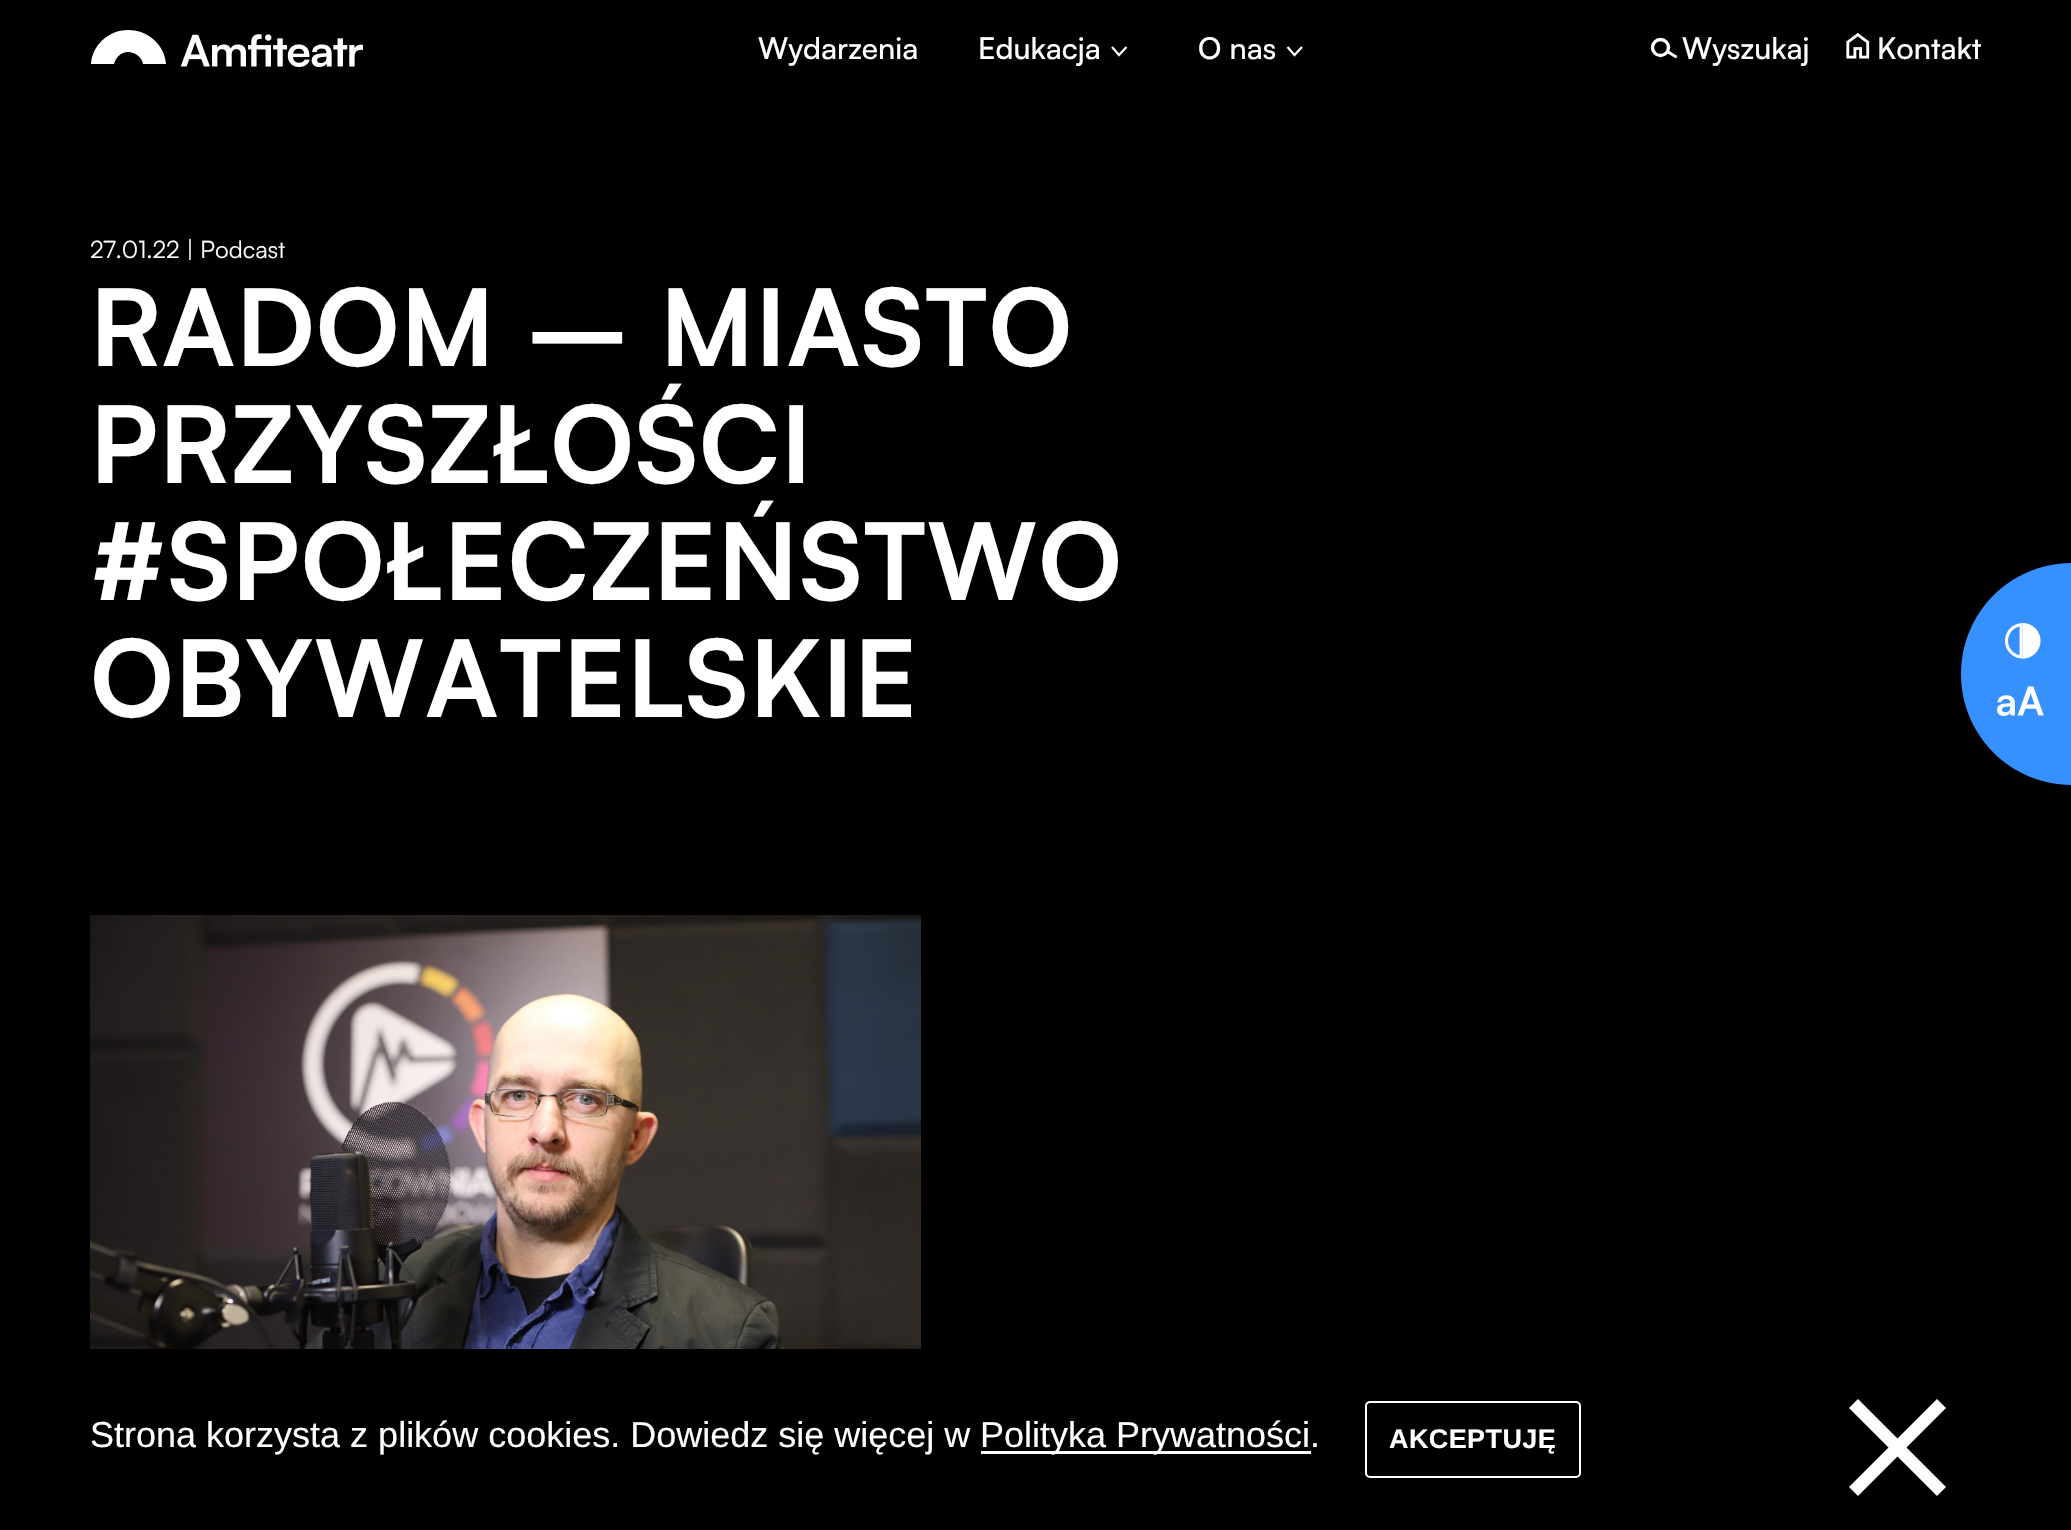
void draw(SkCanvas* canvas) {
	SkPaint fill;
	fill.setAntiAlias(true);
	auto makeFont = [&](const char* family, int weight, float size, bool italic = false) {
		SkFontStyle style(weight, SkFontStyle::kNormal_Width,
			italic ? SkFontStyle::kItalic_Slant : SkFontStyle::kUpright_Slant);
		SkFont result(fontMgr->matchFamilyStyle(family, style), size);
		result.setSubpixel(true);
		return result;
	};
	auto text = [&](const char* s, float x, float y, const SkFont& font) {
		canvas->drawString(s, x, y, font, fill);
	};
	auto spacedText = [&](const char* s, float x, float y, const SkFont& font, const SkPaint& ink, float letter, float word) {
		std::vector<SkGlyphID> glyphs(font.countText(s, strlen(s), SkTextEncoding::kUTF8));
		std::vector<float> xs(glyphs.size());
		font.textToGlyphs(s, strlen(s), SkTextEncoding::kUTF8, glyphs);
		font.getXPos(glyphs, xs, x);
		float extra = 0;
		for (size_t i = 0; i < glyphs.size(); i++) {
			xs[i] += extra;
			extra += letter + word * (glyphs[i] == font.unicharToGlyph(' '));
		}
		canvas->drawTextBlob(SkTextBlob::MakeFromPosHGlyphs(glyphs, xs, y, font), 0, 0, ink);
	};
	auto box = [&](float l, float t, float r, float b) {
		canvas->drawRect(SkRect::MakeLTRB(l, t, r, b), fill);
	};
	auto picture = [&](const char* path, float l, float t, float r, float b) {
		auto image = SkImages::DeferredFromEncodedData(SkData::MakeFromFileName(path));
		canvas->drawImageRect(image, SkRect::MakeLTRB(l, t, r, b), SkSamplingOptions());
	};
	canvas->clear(0xFF000000);
	fill.setColor(0xFFFFFFFF);
	canvas->drawPath(SkPathBuilder().moveTo(128, 52).cubicTo(121, 52, 116, 57, 114, 64).lineTo(91, 64).cubicTo(92, 46, 108, 30, 128, 30).cubicTo(149, 30, 165, 46, 166, 64).lineTo(143, 64).cubicTo(142, 57, 135, 52, 128, 52).close().detach(), fill);
	picture("image0.png", 180, 34, 363, 67);
	fill.setStyle(SkPaint::kStroke_Style);
	fill.setStrokeWidth(2.2f);
	canvas->drawPath(SkPathBuilder().moveTo(1112, 47).lineTo(1119, 55).lineTo(1126.5f, 47).detach(), fill);
	canvas->drawPath(SkPathBuilder().moveTo(1287.5f, 47).lineTo(1294.5f, 55).lineTo(1302, 47).detach(), fill);
	fill.setStyle(SkPaint::kFill_Style);
	canvas->drawPath(SkPathBuilder().moveTo(1667.5f, 50).lineTo(1677.5f, 56).lineTo(1676, 58.5f).lineTo(1666, 52.5f).close().detach(), fill);
	fill.setStyle(SkPaint::kStroke_Style);
	fill.setStrokeWidth(3.4f);
	canvas->drawCircle(1660.5f, 47.5f, 8, fill);
	picture("image1.png", 1846, 33, 1870, 59);
	picture("image2.png", 90, 915, 921, 1349);
	fill.setStyle(SkPaint::kFill_Style);
	fill.setColor(0xFF3691FF);
	canvas->drawPath(SkPathBuilder().moveTo(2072, 563).lineTo(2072, 785).cubicTo(2010.5f, 785, 1961, 735.5f, 1961, 674).cubicTo(1961, 612.5f, 2010.5f, 563, 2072, 563).close().detach(), fill);
	picture("image3.png", 2004, 623, 2041, 659);
	picture("image4.png", 1997, 686, 2044, 716);
	fill.setColor(0xFFFFFFFF);
	box(981, 1451, 1311, 1454);
	fill.setStyle(SkPaint::kStroke_Style);
	fill.setStrokeWidth(2);
	canvas->drawRoundRect(SkRect::MakeLTRB(1366, 1402, 1580, 1477), 4, 4, fill);
	fill.setStyle(SkPaint::kFill_Style);
	canvas->drawPath(SkPathBuilder().moveTo(1937, 1399).lineTo(1946, 1408).lineTo(1858, 1496).lineTo(1849, 1487).close().detach(), fill);
	canvas->drawPath(SkPathBuilder().moveTo(1849, 1408).lineTo(1858, 1399).lineTo(1946, 1487).lineTo(1937, 1496).close().detach(), fill);
	auto font1 = makeFont("Satoshi", 500, 30);
	text("Wydarzenia", 758, 59, font1);
	text("Edukacja", 978, 59, font1);
	text("O nas", 1198, 59, font1);
	text("Wyszukaj", 1682, 59, font1);
	text("Kontakt", 1877, 59, font1);
	auto font2 = makeFont("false", 400, 24);
	text("27.01.22 | Podcast", 90, 258, font2);
	auto font3 = makeFont("false", 700, 106.5f);
	spacedText("RADOM – MIASTO", 90, 366, font3, fill, 1, 0);
	spacedText("PRZYSZŁOŚCI", 90, 483, font3, fill, 1, 0);
	spacedText("#SPOŁECZEŃSTWO", 90, 600, font3, fill, 1, 0);
	spacedText("OBYWATELSKIE", 90, 717, font3, fill, 1, 0);
	auto font4 = makeFont("Liberation Sans", 400, 36);
	text("Strona korzysta z plików cookies. Dowiedz się więcej w", 90, 1447, font4);
	text("Polityka Prywatności.", 980, 1447, font4);
	auto font5 = makeFont("Liberation Sans", 700, 27);
	spacedText("AKCEPTUJĘ", 1389, 1448, font5, fill, 0.4f, 0);
}
